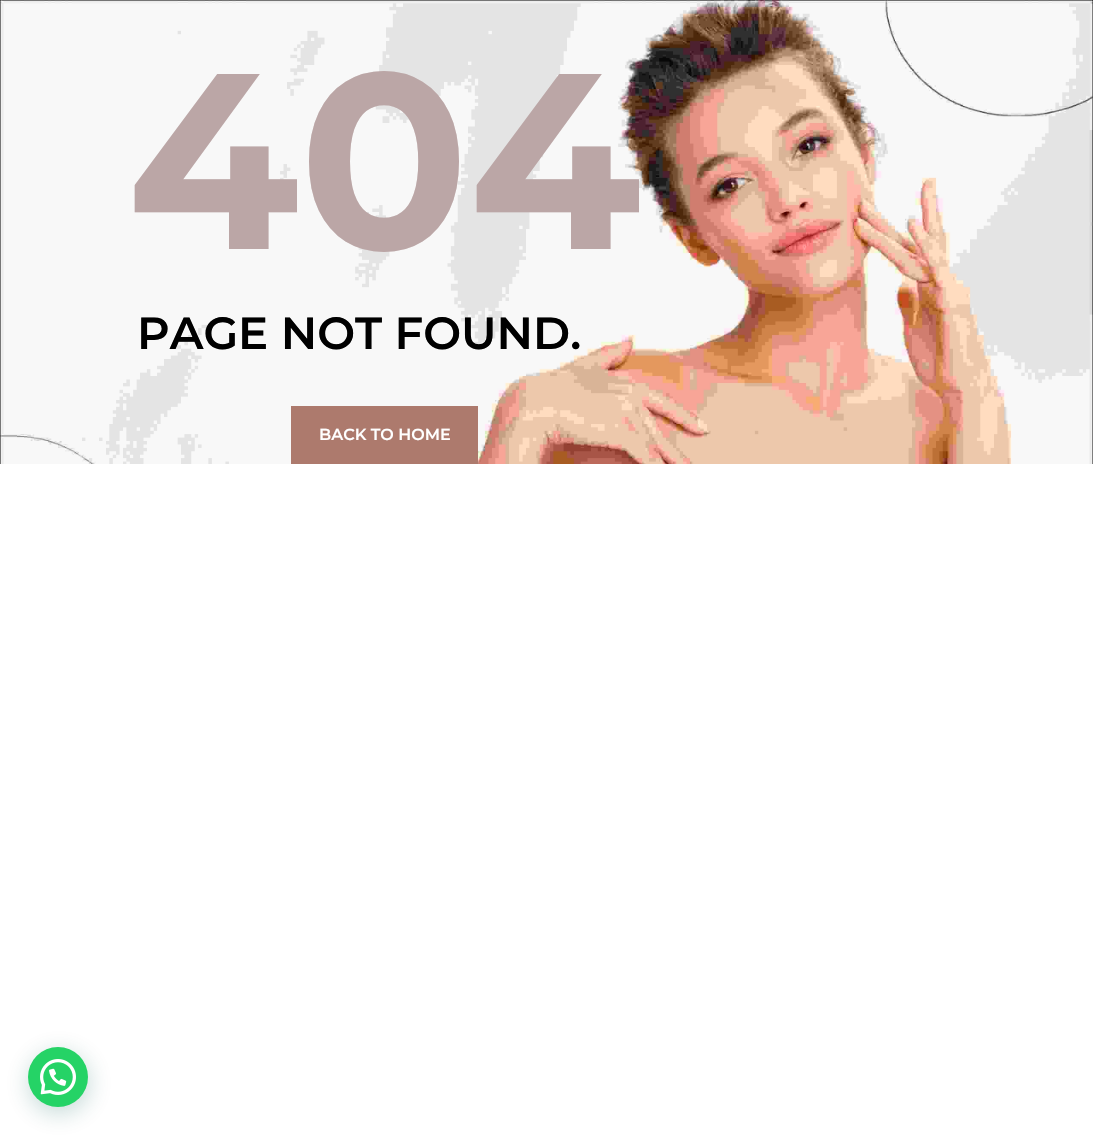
void draw(SkCanvas* canvas) {
	SkPaint fill;
	fill.setAntiAlias(true);
	auto makeFont = [&](const char* family, int weight, float size, bool italic = false) {
		SkFontStyle style(weight, SkFontStyle::kNormal_Width,
			italic ? SkFontStyle::kItalic_Slant : SkFontStyle::kUpright_Slant);
		SkFont result(fontMgr->matchFamilyStyle(family, style), size);
		result.setSubpixel(true);
		return result;
	};
	auto text = [&](const char* s, float x, float y, const SkFont& font) {
		canvas->drawString(s, x, y, font, fill);
	};
	auto box = [&](float l, float t, float r, float b) {
		canvas->drawRect(SkRect::MakeLTRB(l, t, r, b), fill);
	};
	auto picture = [&](const char* path, float l, float t, float r, float b) {
		auto image = SkImages::DeferredFromEncodedData(SkData::MakeFromFileName(path));
		canvas->drawImageRect(image, SkRect::MakeLTRB(l, t, r, b), SkSamplingOptions());
	};
	canvas->clear(0xFFFFFFFF);
	picture("image0.png", 0, 0, 1093, 464);
	fill.setColor(0xFFAD7A6D);
	box(291, 406, 478, 464);
	fill.setColor(0x3D075E54);
	fill.setMaskFilter(SkMaskFilter::MakeBlur(kNormal_SkBlurStyle, 12));
	canvas->drawRoundRect(SkRect::MakeLTRB(29, 1053, 89, 1113), 30, 30, fill);
	fill.setMaskFilter(nullptr);
	fill.setColor(0xFF25D366);
	canvas->drawCircle(58, 1077, 30, fill);
	picture("image1.png", 40, 1059, 76, 1095);
	auto font1 = makeFont("Montserrat", 700, 250);
	fill.setColor(0xFFBBA6A6);
	text("404", 127, 249, font1);
	auto font2 = makeFont("Montserrat", 600, 45);
	fill.setColor(0xFF000000);
	text("PAGE NOT FOUND.", 137, 349, font2);
	auto font3 = makeFont("Montserrat", 600, 16);
	fill.setColor(0xFFFFFFFF);
	text("BACK TO HOME", 319, 440, font3);
}
